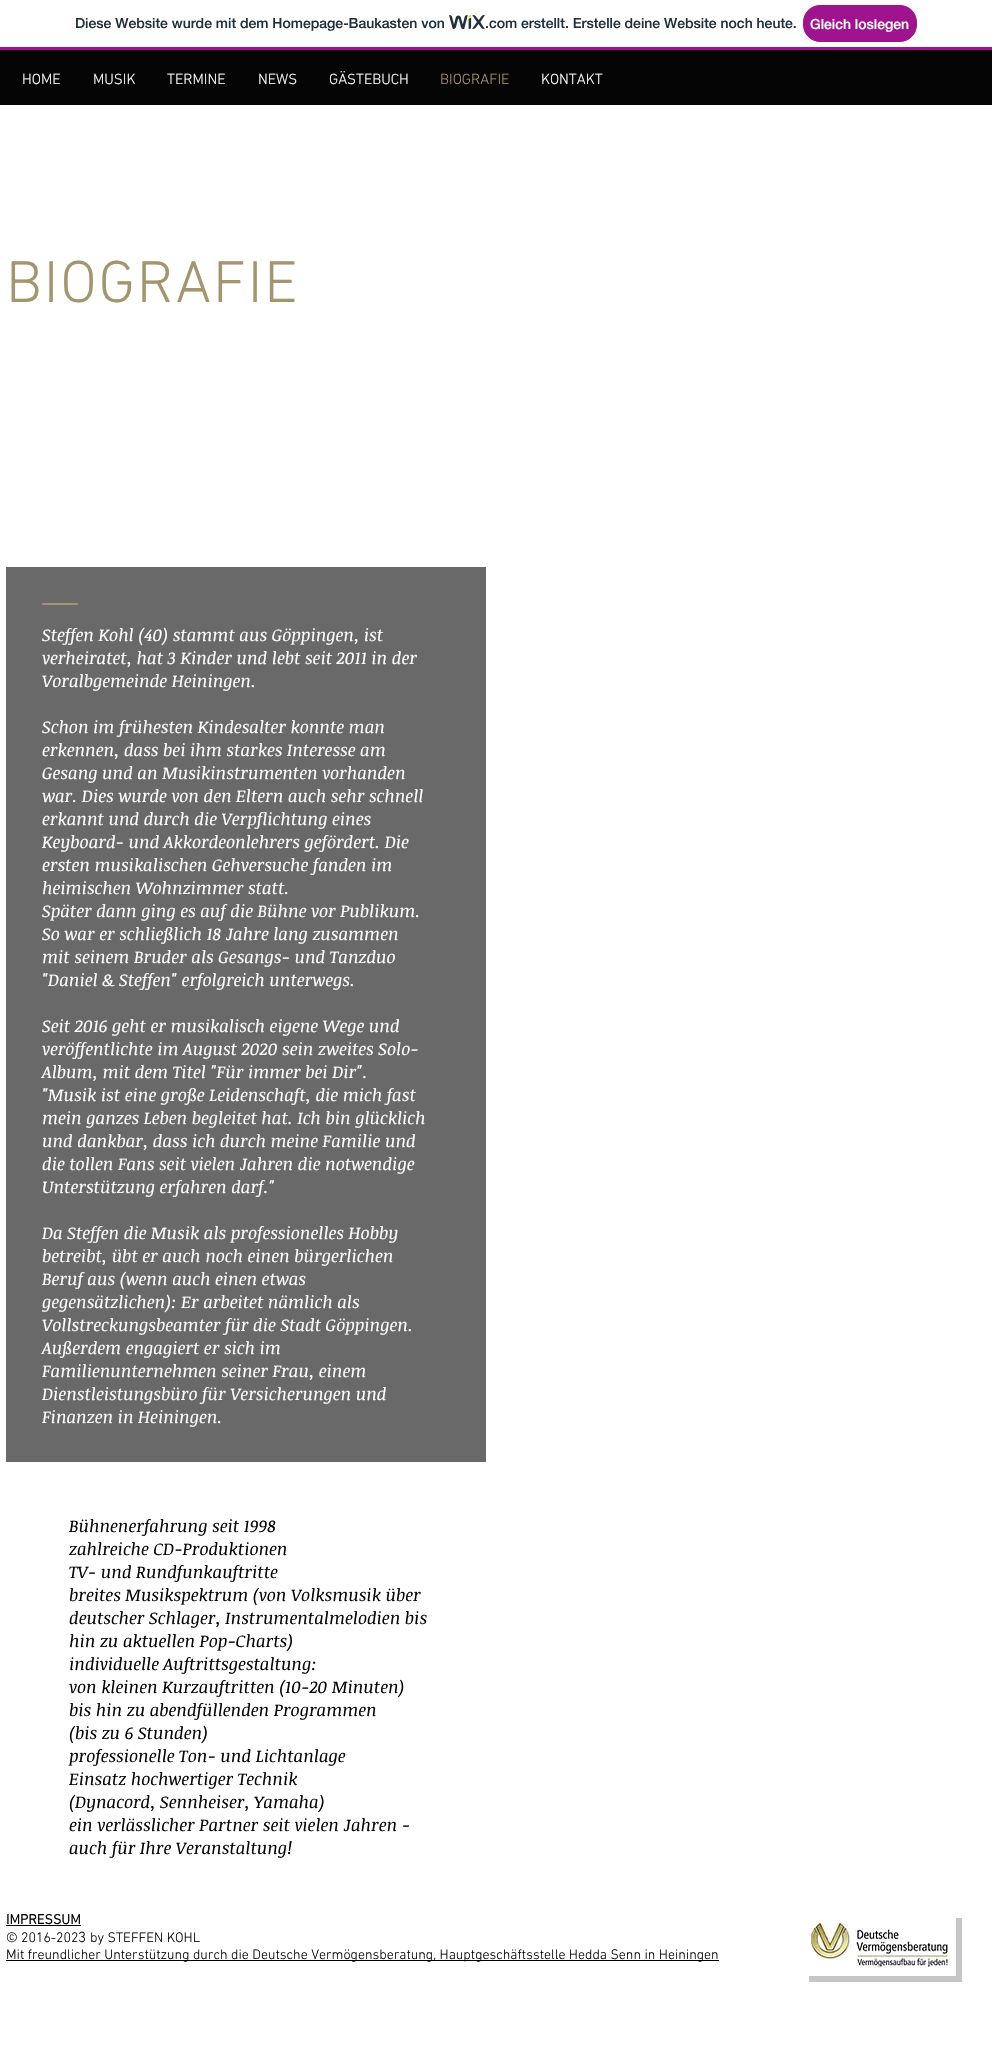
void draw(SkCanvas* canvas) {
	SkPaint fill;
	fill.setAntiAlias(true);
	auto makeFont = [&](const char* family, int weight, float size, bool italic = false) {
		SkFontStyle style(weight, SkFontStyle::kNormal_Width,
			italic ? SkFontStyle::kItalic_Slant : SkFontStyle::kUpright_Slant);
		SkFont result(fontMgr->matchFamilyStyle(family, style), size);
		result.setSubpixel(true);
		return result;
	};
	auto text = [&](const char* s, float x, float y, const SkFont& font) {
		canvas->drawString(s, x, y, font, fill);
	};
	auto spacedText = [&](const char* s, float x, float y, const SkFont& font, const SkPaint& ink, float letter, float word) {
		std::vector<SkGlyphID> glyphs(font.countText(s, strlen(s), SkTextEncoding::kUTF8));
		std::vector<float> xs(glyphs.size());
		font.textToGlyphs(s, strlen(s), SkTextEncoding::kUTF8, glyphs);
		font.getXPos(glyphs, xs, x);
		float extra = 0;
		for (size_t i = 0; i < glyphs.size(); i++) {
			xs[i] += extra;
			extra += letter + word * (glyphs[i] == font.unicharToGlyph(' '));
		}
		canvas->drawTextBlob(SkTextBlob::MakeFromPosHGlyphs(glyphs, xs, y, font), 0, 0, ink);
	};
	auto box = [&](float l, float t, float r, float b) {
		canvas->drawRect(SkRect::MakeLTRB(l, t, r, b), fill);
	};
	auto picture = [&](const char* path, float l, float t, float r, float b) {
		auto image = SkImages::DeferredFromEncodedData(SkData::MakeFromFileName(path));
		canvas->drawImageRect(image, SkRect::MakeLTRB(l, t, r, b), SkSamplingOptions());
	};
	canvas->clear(0xFFFFFFFF);
	fill.setColor(0xFFA0138E);
	box(0, 47, 992, 50);
	picture("image0.png", 449, 15, 485, 30);
	canvas->drawRoundRect(SkRect::MakeLTRB(803.5f, 5.5f, 916.5f, 41.5f), 16.5f, 16.5f, fill);
	fill.setStyle(SkPaint::kStroke_Style);
	fill.setStrokeWidth(1);
	canvas->drawRoundRect(SkRect::MakeLTRB(803.5f, 5.5f, 916.5f, 41.5f), 16.5f, 16.5f, fill);
	fill.setStyle(SkPaint::kFill_Style);
	fill.setColor(0xFF050505);
	box(0, 50, 992, 105);
	fill.setColor(0xFF696969);
	box(6, 567, 486, 1462);
	fill.setColor(0xFFA3956D);
	box(42, 603, 78, 605);
	fill.setColor(0xFF000000);
	box(6, 1925, 81, 1926);
	box(6, 1960, 719, 1961);
	fill.setColor(0xFFC6C6C6);
	canvas->drawPath(SkPathBuilder().moveTo(809, 1976).lineTo(809, 1982).lineTo(962, 1982).lineTo(962, 1918).lineTo(956, 1918).lineTo(956, 1976).close().detach(), fill);
	picture("image1.png", 810, 1920, 951, 1968);
	auto font1 = makeFont("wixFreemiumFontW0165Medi", 500, 14);
	fill.setColor(0xFF20303C);
	text("Diese Website wurde mit dem Homepage-Baukasten von", 75, 28, font1);
	text(".com erstellt. Erstelle deine Website noch heute.", 485, 28, font1);
	fill.setColor(0xFFFFFFFF);
	text("Gleich loslegen", 810, 29, font1);
	auto font2 = makeFont("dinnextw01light", 300, 15);
	text("HOME", 22, 84, font2);
	text("MUSIK", 93, 84, font2);
	text("TERMINE", 167, 84, font2);
	text("NEWS", 258, 84, font2);
	text("GÄSTEBUCH", 329, 84, font2);
	fill.setColor(0xFFA3956D);
	text("BIOGRAFIE", 440, 84, font2);
	fill.setColor(0xFFFFFFFF);
	text("KONTAKT", 541, 84, font2);
	auto font3 = makeFont("dinnextw01light", 300, 60);
	fill.setColor(0xFFA3956D);
	spacedText("BIOGRAFIE", 6, 302, font3, fill, 1.75f, 0);
	auto font4 = makeFont("Noticia Text", 400, 17, true);
	fill.setColor(0xFFFFFFFF);
	text("Steffen Kohl (40) stammt aus Göppingen, ist", 42, 641, font4);
	text("verheiratet, hat 3 Kinder und lebt seit 2011 in der", 42, 664, font4);
	text("Voralbgemeinde Heiningen.", 42, 687, font4);
	text("Schon im frühesten Kindesalter konnte man", 42, 733, font4);
	text("erkennen, dass bei ihm starkes Interesse am", 42, 756, font4);
	text("Gesang und an Musikinstrumenten vorhanden", 42, 779, font4);
	text("war. Dies wurde von den Eltern auch sehr schnell", 42, 802, font4);
	text("erkannt und durch die Verpflichtung eines", 42, 825, font4);
	text("Keyboard- und Akkordeonlehrers gefördert. Die", 42, 848, font4);
	text("ersten musikalischen Gehversuche fanden im", 42, 871, font4);
	text("heimischen Wohnzimmer statt.", 42, 894, font4);
	text("Später dann ging es auf die Bühne vor Publikum.", 42, 917, font4);
	text("So war er schließlich 18 Jahre lang zusammen", 42, 940, font4);
	text("mit seinem Bruder als Gesangs- und Tanzduo", 42, 963, font4);
	text("\"Daniel & Steffen\" erfolgreich unterwegs.", 42, 986, font4);
	text("Seit 2016 geht er musikalisch eigene Wege und", 42, 1032, font4);
	text("veröffentlichte im August 2020 sein zweites Solo-", 42, 1055, font4);
	text("Album, mit dem Titel \"Für immer bei Dir\".", 42, 1078, font4);
	text("\"Musik ist eine große Leidenschaft, die mich fast", 42, 1101, font4);
	text("mein ganzes Leben begleitet hat. Ich bin glücklich", 42, 1124, font4);
	text("und dankbar, dass ich durch meine Familie und", 42, 1147, font4);
	text("die tollen Fans seit vielen Jahren die notwendige", 42, 1170, font4);
	text("Unterstützung erfahren darf.\"", 42, 1193, font4);
	text("Da Steffen die Musik als professionelles Hobby", 42, 1239, font4);
	text("betreibt, übt er auch noch einen bürgerlichen", 42, 1262, font4);
	text("Beruf aus (wenn auch einen etwas", 42, 1285, font4);
	text("gegensätzlichen): Er arbeitet nämlich als", 42, 1308, font4);
	text("Vollstreckungsbeamter für die Stadt Göppingen.", 42, 1331, font4);
	text("Außerdem engagiert er sich im", 42, 1354, font4);
	text("Familienunternehmen seiner Frau, einem", 42, 1377, font4);
	text("Dienstleistungsbüro für Versicherungen und", 42, 1400, font4);
	text("Finanzen in Heiningen.", 42, 1423, font4);
	fill.setColor(0xFF050505);
	text("Bühnenerfahrung seit 1998", 69, 1532, font4);
	text("zahlreiche CD-Produktionen", 69, 1555, font4);
	text("TV- und Rundfunkauftritte", 69, 1578, font4);
	text("breites Musikspektrum (von Volksmusik über", 69, 1601, font4);
	text("deutscher Schlager, Instrumentalmelodien bis", 69, 1624, font4);
	text("hin zu aktuellen Pop-Charts)", 69, 1647, font4);
	text("individuelle Auftrittsgestaltung:", 69, 1670, font4);
	text("von kleinen Kurzauftritten (10-20 Minuten)", 69, 1693, font4);
	text("bis hin zu abendfüllenden Programmen", 69, 1716, font4);
	text("(bis zu 6 Stunden)", 69, 1739, font4);
	text("professionelle Ton- und Lichtanlage", 69, 1762, font4);
	text("Einsatz hochwertiger Technik", 69, 1785, font4);
	text("(Dynacord, Sennheiser, Yamaha)", 69, 1808, font4);
	text("ein verlässlicher Partner seit vielen Jahren -", 69, 1831, font4);
	text("auch für Ihre Veranstaltung!", 69, 1854, font4);
	auto font5 = makeFont("dinnextw01light", 700, 14);
	text("IMPRESSUM", 6, 1924, font5);
	auto font6 = makeFont("dinnextw01light", 300, 14);
	text("© 2016-202", 6, 1942, font6);
	text("3", 78, 1942, font2);
	text("by STEFFEN KOHL", 90, 1942, font6);
	text("Mit freundlicher Unterstützung durch die Deutsche Vermögensberatung, Hauptgeschäftsstelle Hedda Senn in Heiningen", 6, 1959, font6);
}
